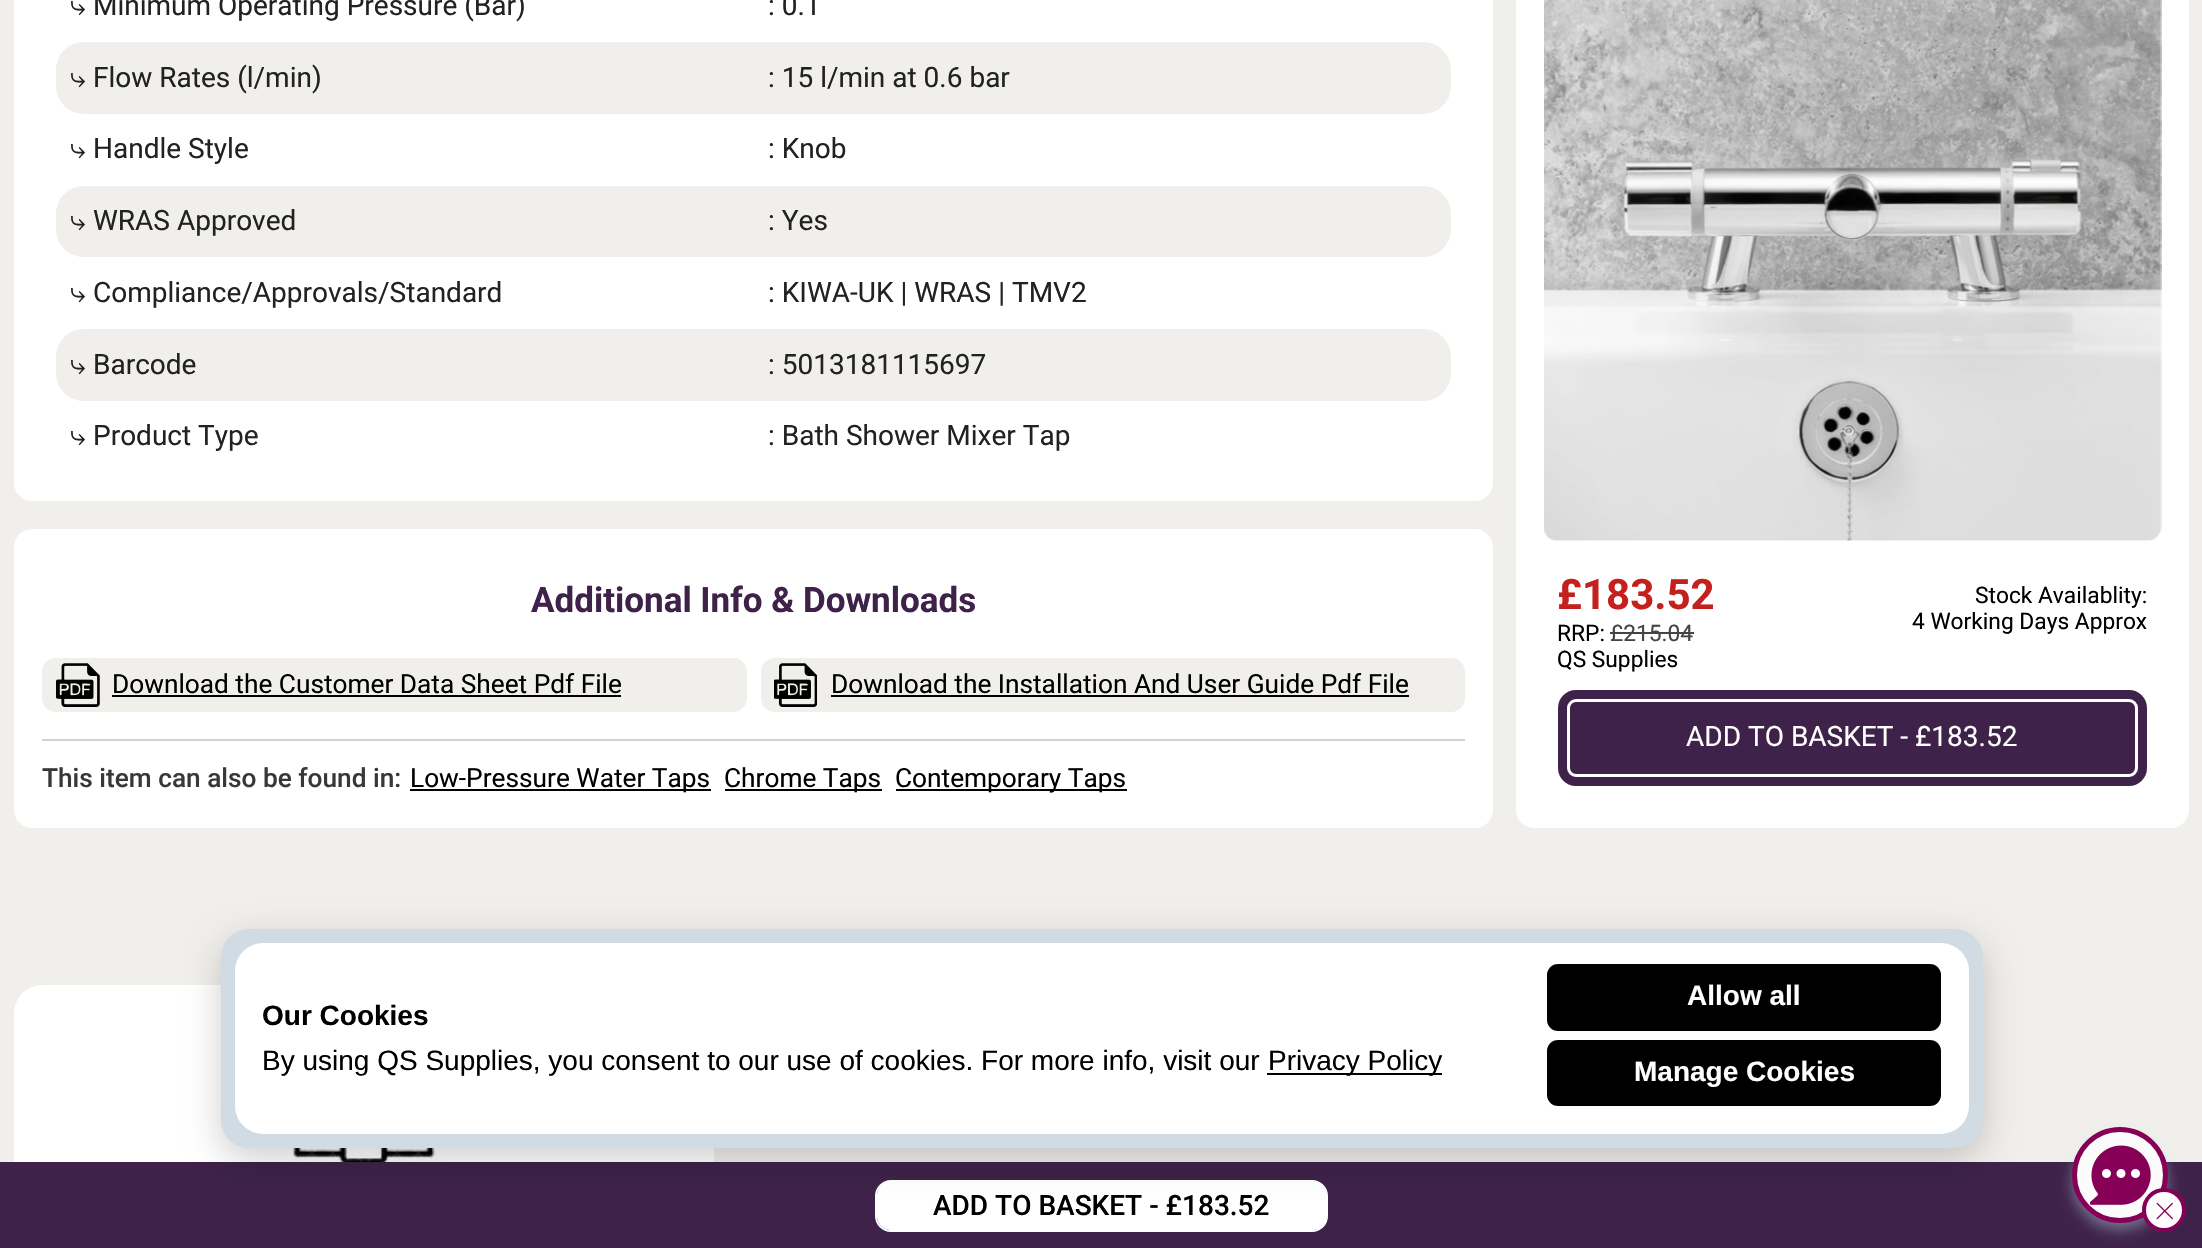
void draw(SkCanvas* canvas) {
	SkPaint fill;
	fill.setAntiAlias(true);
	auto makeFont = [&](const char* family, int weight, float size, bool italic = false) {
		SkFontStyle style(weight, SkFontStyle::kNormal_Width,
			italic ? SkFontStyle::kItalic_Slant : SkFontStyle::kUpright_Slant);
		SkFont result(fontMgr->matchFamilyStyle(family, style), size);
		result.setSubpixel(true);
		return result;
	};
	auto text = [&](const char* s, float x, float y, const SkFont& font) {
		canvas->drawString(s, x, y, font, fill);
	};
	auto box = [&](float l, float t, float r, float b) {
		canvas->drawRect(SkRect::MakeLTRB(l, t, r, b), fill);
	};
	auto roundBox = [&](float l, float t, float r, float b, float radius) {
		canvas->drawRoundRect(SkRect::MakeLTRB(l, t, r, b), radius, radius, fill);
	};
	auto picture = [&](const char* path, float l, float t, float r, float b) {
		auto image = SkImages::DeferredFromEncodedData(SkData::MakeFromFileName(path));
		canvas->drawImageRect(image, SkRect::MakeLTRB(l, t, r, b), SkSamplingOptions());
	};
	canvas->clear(0xFFF0EFEC);
	fill.setColor(0xFFFFFFFF);
	roundBox(14, -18, 1493, 501, 18);
	fill.setColor(0xFFF0EFEC);
	canvas->drawPath(SkPathBuilder().moveTo(84, 42).lineTo(754, 42).lineTo(754, 114).lineTo(84, 114).cubicTo(68.5f, 114, 56, 101.5f, 56, 86).lineTo(56, 70).cubicTo(56, 54.5f, 68.5f, 42, 84, 42).close().detach(), fill);
	canvas->drawPath(SkPathBuilder().moveTo(754, 42).lineTo(1423, 42).cubicTo(1438.5f, 42, 1451, 54.5f, 1451, 70).lineTo(1451, 86).cubicTo(1451, 101.5f, 1438.5f, 114, 1423, 114).lineTo(754, 114).close().detach(), fill);
	canvas->drawPath(SkPathBuilder().moveTo(84, 186).lineTo(754, 186).lineTo(754, 257).lineTo(84, 257).cubicTo(68.5f, 257, 56, 244.5f, 56, 229).lineTo(56, 214).cubicTo(56, 198.5f, 68.5f, 186, 84, 186).close().detach(), fill);
	canvas->drawPath(SkPathBuilder().moveTo(754, 186).lineTo(1423, 186).cubicTo(1438.5f, 186, 1451, 198.5f, 1451, 214).lineTo(1451, 229).cubicTo(1451, 244.5f, 1438.5f, 257, 1423, 257).lineTo(754, 257).close().detach(), fill);
	canvas->drawPath(SkPathBuilder().moveTo(84, 329).lineTo(754, 329).lineTo(754, 401).lineTo(84, 401).cubicTo(68.5f, 401, 56, 388.5f, 56, 373).lineTo(56, 357).cubicTo(56, 341.5f, 68.5f, 329, 84, 329).close().detach(), fill);
	canvas->drawPath(SkPathBuilder().moveTo(754, 329).lineTo(1423, 329).cubicTo(1438.5f, 329, 1451, 341.5f, 1451, 357).lineTo(1451, 373).cubicTo(1451, 388.5f, 1438.5f, 401, 1423, 401).lineTo(754, 401).close().detach(), fill);
	fill.setColor(0xFFFFFFFF);
	roundBox(14, 529, 1493, 828, 18);
	fill.setColor(0xFFF0EFEC);
	roundBox(42, 658, 747, 712, 14);
	picture("image0.png", 56, 663, 100, 707);
	fill.setColor(0xFF000000);
	box(112, 695, 621, 697);
	fill.setColor(0xFFF0EFEC);
	roundBox(761, 658, 1465, 712, 14);
	picture("image1.png", 774, 663, 817, 707);
	fill.setColor(0xFF000000);
	box(831, 695, 1409, 697);
	fill.setColor(0xFFD2D2D2);
	box(42, 739, 1465, 741);
	fill.setColor(0xFF000000);
	box(410, 789, 711, 791);
	box(725, 789, 882, 791);
	box(896, 789, 1127, 791);
	fill.setColor(0xFFFFFFFF);
	roundBox(1516, -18, 2189, 828, 18);
	picture("image2.png", 1544, 0, 2162, 541);
	fill.setColor(0xFF444444);
	box(1610, 632, 1694, 634);
	fill.setColor(0xFF3E2249);
	canvas->drawRoundRect(SkRect::MakeLTRB(1564, 696, 2141, 780), 12, 12, fill);
	fill.setStyle(SkPaint::kStroke_Style);
	fill.setStrokeWidth(12);
	fill.setColor(0xFFFFFFFF);
	canvas->drawRoundRect(SkRect::MakeLTRB(1564, 696, 2141, 780), 12, 12, fill);
	fill.setStrokeWidth(9);
	fill.setColor(0xFF3E2249);
	canvas->drawRoundRect(SkRect::MakeLTRB(1562.5f, 694.5f, 2142.5f, 781.5f), 13.5f, 13.5f, fill);
	fill.setStyle(SkPaint::kFill_Style);
	fill.setColor(0xFFFFFFFF);
	roundBox(14, 985, 714, 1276, 28);
	picture("image3.png", 291, 1148, 441, 1162);
	fill.setColor(0xFF3E2249);
	box(0, 1162, 2202, 1248);
	fill.setStyle(SkPaint::kStroke_Style);
	fill.setStrokeWidth(2);
	fill.setColor(0xFFFFFFFF);
	canvas->drawRoundRect(SkRect::MakeLTRB(876, 1181, 1327, 1231), 15, 15, fill);
	fill.setStyle(SkPaint::kFill_Style);
	roundBox(877, 1181, 1327, 1230, 14);
	fill.setColor(0x30000000);
	fill.setMaskFilter(SkMaskFilter::MakeBlur(kNormal_SkBlurStyle, 17.5f));
	canvas->drawRoundRect(SkRect::MakeLTRB(221, 940, 1983, 1159), 28, 28, fill);
	fill.setMaskFilter(nullptr);
	fill.setColor(0xFFD0DBE3);
	roundBox(221, 929, 1983, 1148, 28);
	fill.setColor(0xFFFFFFFF);
	roundBox(235, 943, 1969, 1134, 28);
	fill.setColor(0xFF000000);
	box(1267, 1073, 1442, 1075);
	roundBox(1547, 964, 1941, 1031, 11);
	roundBox(1547, 1040, 1941, 1106, 11);
	fill.setColor(0x73BCCFE4);
	fill.setMaskFilter(SkMaskFilter::MakeBlur(kNormal_SkBlurStyle, 7));
	canvas->drawRoundRect(SkRect::MakeLTRB(2072, 1134, 2168, 1230), 48, 48, fill);
	fill.setMaskFilter(nullptr);
	fill.setColor(0xFFFBFBFB);
	canvas->drawCircle(2120, 1175, 45.5f, fill);
	fill.setStyle(SkPaint::kStroke_Style);
	fill.setStrokeWidth(5);
	fill.setColor(0xFF850056);
	canvas->drawCircle(2120, 1175, 45.5f, fill);
	picture("image4.png", 2090, 1145, 2151, 1205);
	fill.setStyle(SkPaint::kFill_Style);
	fill.setColor(0xFFFFFFFF);
	canvas->drawCircle(2164, 1210, 20, fill);
	fill.setStyle(SkPaint::kStroke_Style);
	fill.setStrokeWidth(4);
	fill.setColor(0xFF850056);
	canvas->drawCircle(2164, 1210, 20, fill);
	picture("image5.png", 2156, 1202, 2173, 1220);
	auto font1 = makeFont("FreeSerif", 400, 28);
	fill.setStyle(SkPaint::kFill_Style);
	fill.setColor(0xFF222222);
	text("⤷", 70, 15, font1);
	auto font2 = makeFont("Roboto", 400, 28);
	text("Minimum Operating Pressure (Bar)", 93, 15, font2);
	text(": 0.1", 768, 15, font2);
	text("⤷", 70, 87, font1);
	text("Flow Rates (l/min)", 93, 87, font2);
	text(": 15 l/min at 0.6 bar", 768, 87, font2);
	text("⤷", 70, 158, font1);
	text("Handle Style", 93, 158, font2);
	text(": Knob", 768, 158, font2);
	text("⤷", 70, 230, font1);
	text("WRAS Approved", 93, 230, font2);
	text(": Yes", 768, 230, font2);
	text("⤷", 70, 302, font1);
	text("Compliance/Approvals/Standard", 93, 302, font2);
	text(": KIWA-UK | WRAS | TMV2", 768, 302, font2);
	text("⤷", 70, 374, font1);
	text("Barcode", 93, 374, font2);
	text(": 5013181115697", 768, 374, font2);
	text("⤷", 70, 445, font1);
	text("Product Type", 93, 445, font2);
	text(": Bath Shower Mixer Tap", 768, 445, font2);
	auto font3 = makeFont("Roboto", 700, 35);
	fill.setColor(0xFF3E2249);
	text("Additional Info & Downloads", 531, 612, font3);
	auto font4 = makeFont("Roboto", 400, 26.25f);
	fill.setColor(0xFF000000);
	text("Download the Customer Data Sheet Pdf File", 112, 693, font4);
	text("Download the Installation And User Guide Pdf File", 831, 693, font4);
	auto font5 = makeFont("Roboto", 500, 26.25f);
	fill.setColor(0xFF383838);
	text("This item can also be found in:", 42, 787, font5);
	fill.setColor(0xFF000000);
	text("Low-Pressure Water Taps", 410, 787, font4);
	text("Chrome Taps", 724, 787, font4);
	text("Contemporary Taps", 895, 787, font4);
	auto font6 = makeFont("Roboto", 700, 42);
	fill.setColor(0xFFC4201D);
	text("£183.52", 1557, 609, font6);
	auto font7 = makeFont("Roboto", 400, 22.75f);
	fill.setColor(0xFF000000);
	text("RRP:", 1557, 641, font7);
	fill.setColor(0xFF444444);
	text("£215.04", 1610, 641, font7);
	fill.setColor(0xFF000000);
	text("Stock Availablity:", 1975, 603, font7);
	text("4 Working Days Approx", 1912, 629, font7);
	text("QS Supplies", 1557, 667, font7);
	fill.setColor(0xFFFFFFFF);
	text("ADD TO BASKET - £183.52", 1686, 746, font2);
	auto font8 = makeFont("Roboto", 500, 28);
	fill.setColor(0xFF000000);
	text("ADD TO BASKET - £183.52", 933, 1215, font8);
	auto font9 = makeFont("Liberation Sans", 700, 28);
	text("Our Cookies", 262, 1025, font9);
	auto font10 = makeFont("Liberation Sans", 400, 28);
	text("By using QS Supplies, you consent to our use of cookies. For more info, visit our", 262, 1070, font10);
	text("Privacy Policy", 1268, 1070, font10);
	fill.setColor(0xFFFFFFFF);
	text("Allow all", 1687, 1005, font9);
	text("Manage Cookies", 1634, 1081, font9);
}
